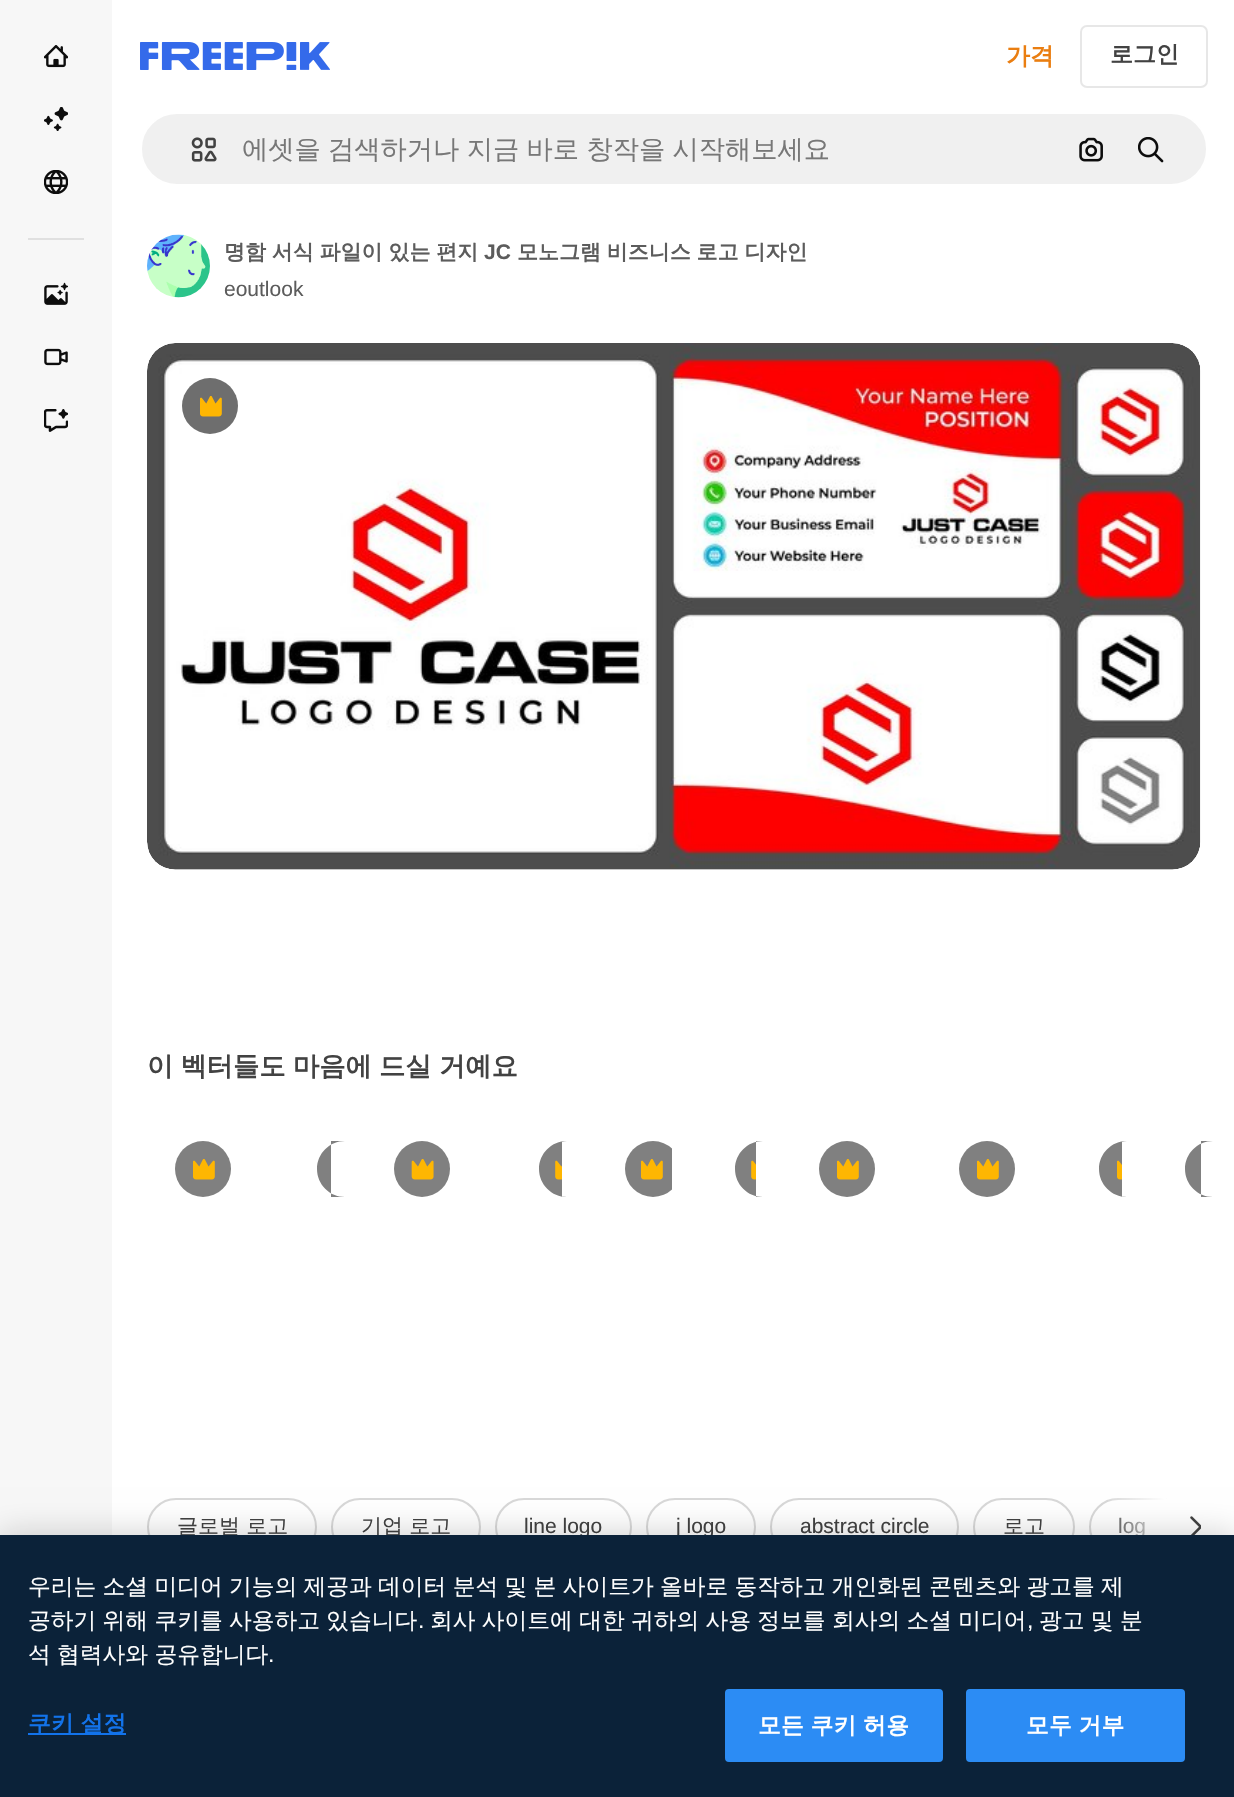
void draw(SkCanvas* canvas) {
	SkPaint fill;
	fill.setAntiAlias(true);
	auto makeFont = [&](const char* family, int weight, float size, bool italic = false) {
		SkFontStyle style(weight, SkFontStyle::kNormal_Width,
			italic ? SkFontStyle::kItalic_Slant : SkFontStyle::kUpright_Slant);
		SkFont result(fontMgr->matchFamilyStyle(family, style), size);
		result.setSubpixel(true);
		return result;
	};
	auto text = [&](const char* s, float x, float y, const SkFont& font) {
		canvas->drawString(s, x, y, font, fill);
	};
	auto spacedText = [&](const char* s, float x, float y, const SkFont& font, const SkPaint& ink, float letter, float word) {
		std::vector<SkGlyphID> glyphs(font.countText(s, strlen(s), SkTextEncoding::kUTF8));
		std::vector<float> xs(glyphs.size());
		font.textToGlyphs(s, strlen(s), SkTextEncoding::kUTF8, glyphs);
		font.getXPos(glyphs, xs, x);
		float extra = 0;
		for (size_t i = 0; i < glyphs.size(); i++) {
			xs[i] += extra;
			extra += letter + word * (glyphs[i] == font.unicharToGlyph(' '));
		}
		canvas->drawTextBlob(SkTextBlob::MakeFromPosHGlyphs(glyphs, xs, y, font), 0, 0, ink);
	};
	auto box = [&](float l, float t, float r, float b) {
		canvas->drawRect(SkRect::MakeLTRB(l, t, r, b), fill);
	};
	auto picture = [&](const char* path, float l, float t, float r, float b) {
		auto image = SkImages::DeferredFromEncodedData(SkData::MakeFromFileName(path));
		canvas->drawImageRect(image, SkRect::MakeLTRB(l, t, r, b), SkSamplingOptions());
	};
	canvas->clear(0xFFFFFFFF);
	fill.setColor(0xFFF7F7F7);
	box(0, 0, 112, 1535);
	picture("image0.png", 44, 45, 68, 68);
	picture("image1.png", 44, 107, 68, 131);
	picture("image2.png", 44, 170, 68, 194);
	fill.setColor(0xFFE0E0E0);
	box(28, 238, 84, 240);
	picture("image3.png", 44, 282, 68, 305);
	picture("image4.png", 44, 348, 68, 366);
	picture("image5.png", 44, 409, 68, 432);
	picture("image6.png", 140, 42, 330, 70);
	fill.setStyle(SkPaint::kStroke_Style);
	fill.setStrokeWidth(2);
	fill.setColor(0xFFE7E7E7);
	canvas->drawRoundRect(SkRect::MakeLTRB(1081, 26, 1207, 87), 6, 6, fill);
	fill.setStyle(SkPaint::kFill_Style);
	fill.setColor(0xFFF0F0F0);
	canvas->drawRoundRect(SkRect::MakeLTRB(141, 113, 1207, 185), 36, 36, fill);
	fill.setStyle(SkPaint::kStroke_Style);
	fill.setColor(0xFFFFFFFF);
	canvas->drawRoundRect(SkRect::MakeLTRB(141, 113, 1207, 185), 36, 36, fill);
	picture("image7.png", 191, 137, 217, 162);
	picture("image8.png", 1079, 137, 1103, 162);
	picture("image9.png", 1138, 137, 1164, 163);
	picture("image10.png", 147, 234, 210, 298);
	picture("image11.png", 147, 343, 1201, 870);
	fill.setStyle(SkPaint::kFill_Style);
	fill.setColor(0xFF6E6E6E);
	canvas->drawCircle(210, 406, 28, fill);
	picture("image12.png", 200, 396, 222, 417);
	fill.setColor(0xFF808080);
	canvas->drawCircle(203, 1169, 28, fill);
	picture("image13.png", 193, 1159, 215, 1180);
	canvas->drawPath(SkPathBuilder().moveTo(345, 1141).lineTo(331, 1141).lineTo(331, 1197).lineTo(345, 1197).cubicTo(329.5f, 1197, 317, 1184.5f, 317, 1169).cubicTo(317, 1153.5f, 329.5f, 1141, 345, 1141).close().detach(), fill);
	canvas->drawCircle(422, 1169, 28, fill);
	picture("image14.png", 411, 1159, 434, 1180);
	canvas->drawPath(SkPathBuilder().moveTo(567, 1141).lineTo(562, 1141).lineTo(562, 1197).lineTo(567, 1197).cubicTo(551.5f, 1197, 539, 1184.5f, 539, 1169).cubicTo(539, 1153.5f, 551.5f, 1141, 567, 1141).close().detach(), fill);
	picture("image15.png", 555, 1160, 562, 1180);
	canvas->save();
	canvas->clipPath(SkPathBuilder().moveTo(625, 1113).lineTo(644, 1113).cubicTo(659.5f, 1113, 672, 1125.5f, 672, 1141).lineTo(672, 1435).cubicTo(672, 1450.5f, 659.5f, 1463, 644, 1463).lineTo(625, 1463).cubicTo(609.5f, 1463, 597, 1450.5f, 597, 1435).lineTo(597, 1141).cubicTo(597, 1125.5f, 609.5f, 1113, 625, 1113).close().detach(), true);
	canvas->drawCircle(653, 1169, 28, fill);
	canvas->restore();
	picture("image13.png", 641, 1159, 663, 1180);
	canvas->drawPath(SkPathBuilder().moveTo(763, 1141).lineTo(756, 1141).lineTo(756, 1197).lineTo(763, 1197).cubicTo(747.5f, 1197, 735, 1184.5f, 735, 1169).cubicTo(735, 1153.5f, 747.5f, 1141, 763, 1141).close().detach(), fill);
	picture("image16.png", 751, 1160, 756, 1180);
	canvas->drawCircle(847, 1169, 28, fill);
	picture("image13.png", 837, 1159, 859, 1180);
	canvas->drawCircle(987, 1169, 28, fill);
	picture("image13.png", 977, 1159, 999, 1180);
	canvas->drawPath(SkPathBuilder().moveTo(1127, 1141).lineTo(1122, 1141).lineTo(1122, 1197).lineTo(1127, 1197).cubicTo(1111.5f, 1197, 1099, 1184.5f, 1099, 1169).cubicTo(1099, 1153.5f, 1111.5f, 1141, 1127, 1141).close().detach(), fill);
	picture("image17.png", 1117, 1160, 1122, 1180);
	canvas->drawPath(SkPathBuilder().moveTo(1213, 1141).lineTo(1201, 1141).lineTo(1201, 1197).lineTo(1213, 1197).cubicTo(1197.5f, 1197, 1185, 1184.5f, 1185, 1169).cubicTo(1185, 1153.5f, 1197.5f, 1141, 1213, 1141).close().detach(), fill);
	fill.setStyle(SkPaint::kStroke_Style);
	fill.setColor(0xFFD8D8D8);
	canvas->drawRoundRect(SkRect::MakeLTRB(148, 1499, 316, 1555), 28, 28, fill);
	canvas->drawRoundRect(SkRect::MakeLTRB(332, 1499, 480, 1555), 28, 28, fill);
	canvas->drawRoundRect(SkRect::MakeLTRB(496, 1499, 631, 1555), 28, 28, fill);
	canvas->drawRoundRect(SkRect::MakeLTRB(647, 1499, 755, 1555), 28, 28, fill);
	canvas->drawRoundRect(SkRect::MakeLTRB(771, 1499, 958, 1555), 28, 28, fill);
	canvas->drawRoundRect(SkRect::MakeLTRB(974, 1499, 1074, 1555), 28, 28, fill);
	canvas->drawRoundRect(SkRect::MakeLTRB(1090, 1499, 1187, 1555), 28, 28, fill);
	fill.setStyle(SkPaint::kFill_Style);
	fill.setColor(0xFFFFFFFF);
	box(1166, 1499, 1188, 1535);
	picture("image18.png", 1190, 1516, 1201, 1535);
	auto font1 = makeFont("WenQuanYi Zen Hei", 700, 24);
	fill.setColor(0xFFEA7E11);
	text("가격", 1006, 64, font1);
	auto font2 = makeFont("WenQuanYi Zen Hei", 700, 23);
	fill.setColor(0xFF424242);
	text("로그인", 1110, 62, font2);
	auto font3 = makeFont("WenQuanYi Zen Hei", 500, 26.25f);
	fill.setColor(0xFF777777);
	spacedText("에셋을 검색하거나 지금 바로 창작을 시작해보세요", 242, 158, font3, fill, 0, -0.5f);
	auto font4 = makeFont("WenQuanYi Zen Hei", 700, 21);
	fill.setColor(0xFF5C5C5C);
	spacedText("명함 서식 파일이 있는 편지", 224, 259, font4, fill, 0, -0.5f);
	auto font5 = makeFont("Liberation Sans", 700, 21);
	text("JC", 484, 259, font5);
	spacedText("모노그램 비즈니스 로고 디자인", 517, 259, font4, fill, 0, -0.5f);
	auto font6 = makeFont("Liberation Sans", 400, 21);
	text("eoutlook", 224, 296, font6);
	auto font7 = makeFont("WenQuanYi Zen Hei", 700, 26.25f);
	fill.setColor(0xFF424242);
	spacedText("이 벡터들도 마음에 드실 거예요", 147, 1075, font7, fill, 0, -0.5f);
	auto font8 = makeFont("WenQuanYi Zen Hei", 500, 21);
	text("글로벌 로고", 177, 1533, font8);
	text("기업 로고", 361, 1533, font8);
	text("line logo", 524, 1533, font6);
	text("j logo", 676, 1533, font6);
	text("abstract circle", 800, 1533, font6);
	text("로고", 1003, 1533, font8);
	text("log", 1118, 1533, font6);
	{
		const SkColor colors[] = {0xFFFFFFFF, 0x00FFFFFF};
		const float stops[] = {0, 1};
		const SkPoint ends[] = {{1166, 1527}, {1104, 1527}};
		fill.setShader(SkGradientShader::MakeLinear(ends, colors, stops, 2, SkTileMode::kClamp));
		fill.setAlpha(255);
	}
	box(1108, 1498, 1166, 1535);
	fill.setShader(nullptr);
	fill.setColor(0x33000000);
	fill.setMaskFilter(SkMaskFilter::MakeBlur(kNormal_SkBlurStyle, 16));
	canvas->drawRect(SkRect::MakeLTRB(0, 1535, 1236, 1797), fill);
	fill.setMaskFilter(nullptr);
	fill.setColor(0xFF0B2239);
	box(0, 1535, 1234, 1797);
	auto font9 = makeFont("WenQuanYi Zen Hei", 500, 22.75f);
	fill.setColor(0xFFFFFFFF);
	spacedText("우리는 소셜 미디어 기능의 제공과 데이터 분석 및 본 사이트가 올바로 동작하고 개인화된 콘텐츠와 광고를 제", 28, 1594, font9, fill, 0, -0.5f);
	spacedText("공하기 위해 쿠키를 사용하고 있습니다", 28, 1628, font9, fill, 0, -0.5f);
	auto font10 = makeFont("Liberation Sans", 400, 22.75f);
	text(".", 418, 1628, font10);
	spacedText("회사 사이트에 대한 귀하의 사용 정보를 회사의 소셜 미디어", 430, 1628, font9, fill, 0, -0.5f);
	text(",", 1027, 1628, font10);
	spacedText("광고 및 분", 1039, 1628, font9, fill, 0, -0.5f);
	spacedText("석 협력사와 공유합니다", 28, 1662, font9, fill, 0, -0.5f);
	text(".", 268, 1662, font10);
	fill.setColor(0xFF1273EB);
	box(28, 1733, 126, 1735);
	auto font11 = makeFont("WenQuanYi Zen Hei", 700, 22.75f);
	spacedText("쿠키 설정", 28, 1731, font11, fill, 0.25f, -0.5f);
	fill.setColor(0xFF2C8CF4);
	canvas->drawRoundRect(SkRect::MakeLTRB(726, 1690, 942, 1761), 3, 3, fill);
	fill.setStyle(SkPaint::kStroke_Style);
	canvas->drawRoundRect(SkRect::MakeLTRB(726, 1690, 942, 1761), 3, 3, fill);
	fill.setStyle(SkPaint::kFill_Style);
	fill.setColor(0xFFFFFFFF);
	spacedText("모든 쿠키 허용", 758, 1733, font11, fill, 0.25f, -0.5f);
	fill.setColor(0xFF2C8CF4);
	canvas->drawRoundRect(SkRect::MakeLTRB(967, 1690, 1184, 1761), 3, 3, fill);
	fill.setStyle(SkPaint::kStroke_Style);
	canvas->drawRoundRect(SkRect::MakeLTRB(967, 1690, 1184, 1761), 3, 3, fill);
	fill.setStyle(SkPaint::kFill_Style);
	fill.setColor(0xFFFFFFFF);
	spacedText("모두 거부", 1026, 1733, font11, fill, 0.25f, -0.5f);
}
